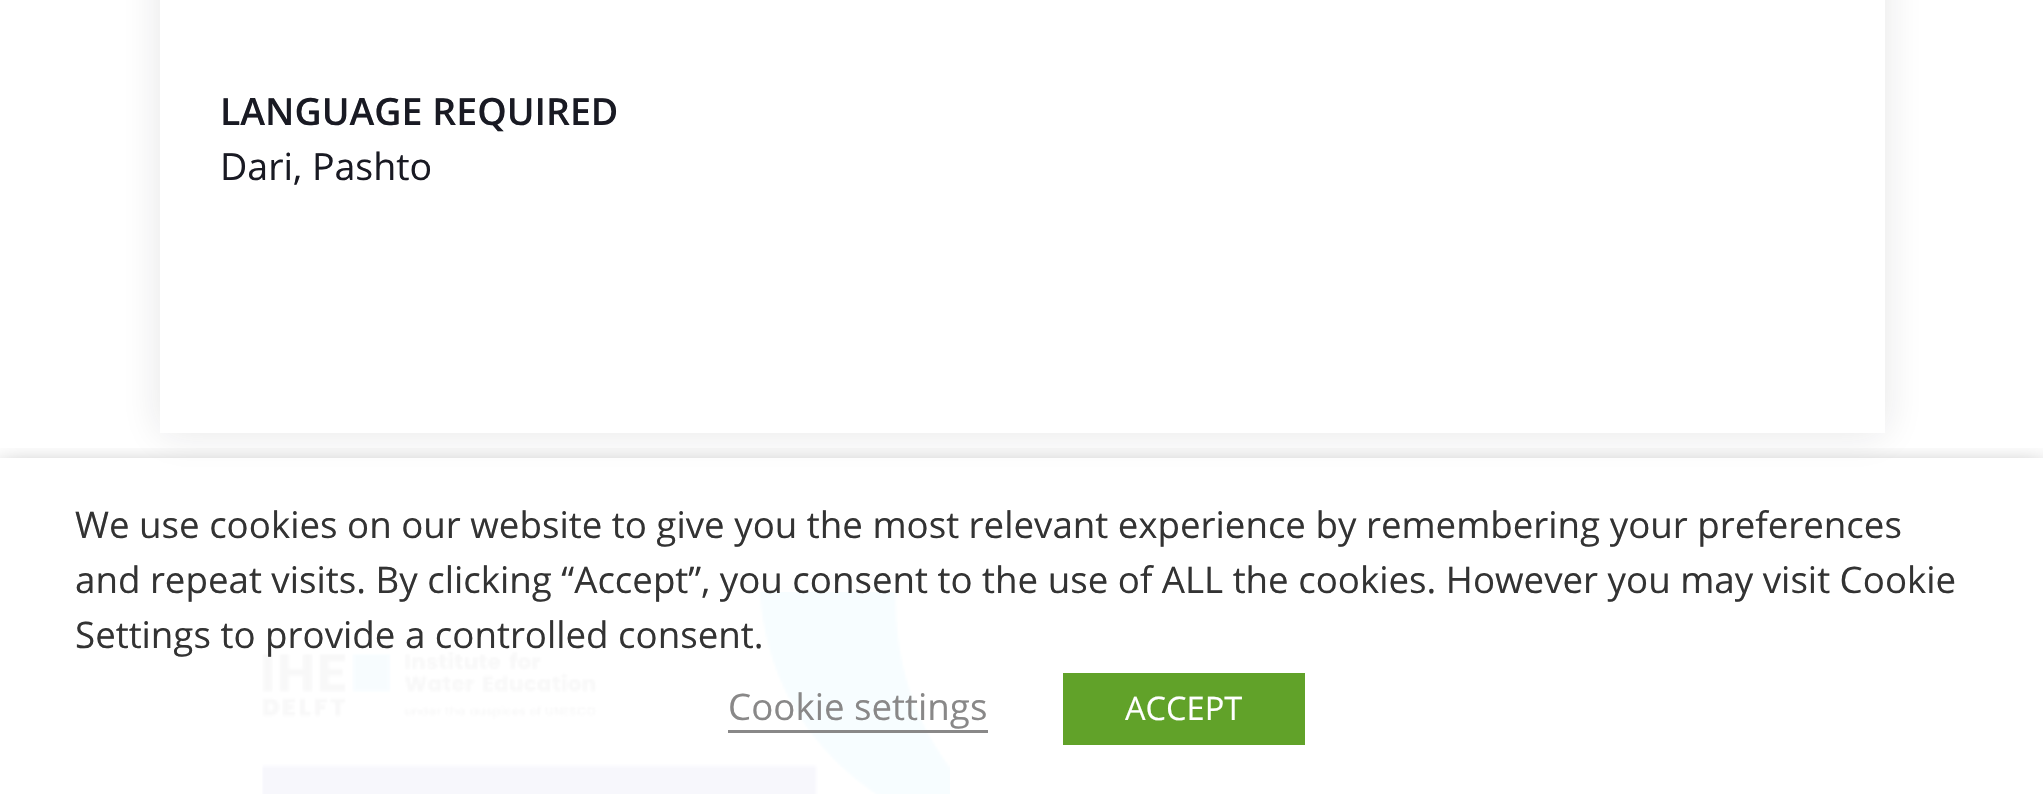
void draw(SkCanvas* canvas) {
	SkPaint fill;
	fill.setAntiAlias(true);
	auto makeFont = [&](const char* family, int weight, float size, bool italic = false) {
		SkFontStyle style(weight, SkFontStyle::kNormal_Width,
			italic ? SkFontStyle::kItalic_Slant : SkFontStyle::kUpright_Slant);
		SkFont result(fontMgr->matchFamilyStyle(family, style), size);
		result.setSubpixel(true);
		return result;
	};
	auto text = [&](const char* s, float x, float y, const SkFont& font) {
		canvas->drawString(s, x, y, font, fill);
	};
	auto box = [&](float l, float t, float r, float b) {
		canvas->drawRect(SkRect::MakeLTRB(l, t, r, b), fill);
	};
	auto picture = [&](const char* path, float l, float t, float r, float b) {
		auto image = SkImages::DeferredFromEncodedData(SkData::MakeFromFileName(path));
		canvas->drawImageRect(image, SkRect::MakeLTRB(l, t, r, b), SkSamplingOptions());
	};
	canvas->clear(0xFFFFFFFF);
	fill.setColor(0x1C191A23);
	fill.setMaskFilter(SkMaskFilter::MakeBlur(kNormal_SkBlurStyle, 19));
	canvas->drawRect(SkRect::MakeLTRB(160, -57, 1885, 433), fill);
	fill.setMaskFilter(nullptr);
	fill.setColor(0xFFFFFFFF);
	box(160, 0, 1885, 433);
	fill.setColor(0xFFF4F5F9);
	box(160, 553, 1885, 794);
	picture("image0.png", 200, 592, 950, 794);
	canvas->save();
	canvas->clipRect(SkRect::MakeLTRB(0, 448, 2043, 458));
	fill.setColor(0x80000000);
	fill.setMaskFilter(SkMaskFilter::MakeBlur(kNormal_SkBlurStyle, 12.5f));
	canvas->drawRect(SkRect::MakeLTRB(0, 470, 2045, 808), fill);
	fill.setMaskFilter(nullptr);
	canvas->restore();
	fill.setColor(0xF7FFFFFF);
	box(160, 553, 1885, 794);
	fill.setColor(0xFF898888);
	box(728, 730, 988, 733);
	fill.setColor(0xFF61A229);
	box(1063, 673, 1305, 745);
	auto font1 = makeFont("Open Sans", 600, 37.5f);
	fill.setColor(0xFF191A23);
	text("LANGUAGE REQUIRED", 220, 125, font1);
	auto font2 = makeFont("Open Sans", 400, 37.5f);
	text("Dari, Pashto", 220, 180, font2);
	auto font3 = makeFont("Open Sans", 400, 36.67f);
	fill.setColor(0xFF333333);
	text("We use cookies on our website to give you the most relevant experience by remembering your preferences", 75, 538, font3);
	text("and repeat visits. By clicking “Accept”, you consent to the use of ALL the cookies. However you may visit Cookie", 75, 593, font3);
	text("Settings to provide a controlled consent.", 75, 648, font3);
	fill.setColor(0xFF898888);
	text("Cookie settings", 728, 720, font3);
	auto font4 = makeFont("Open Sans", 400, 32.5f);
	fill.setColor(0xFFFFFFFF);
	text("ACCEPT", 1125, 720, font4);
}
